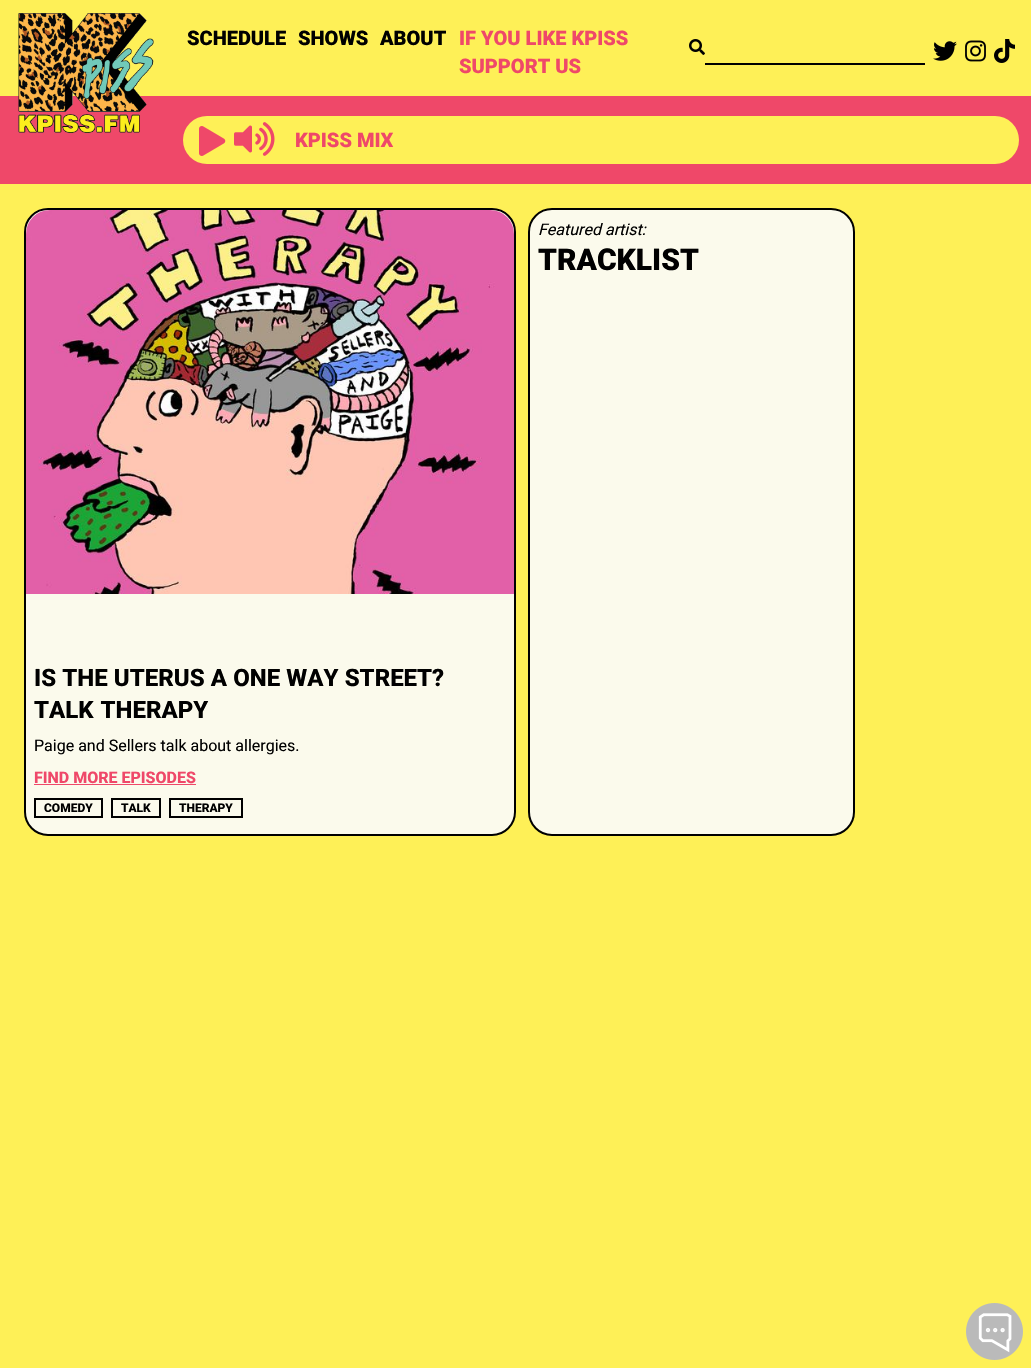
void draw(SkCanvas* canvas) {
	SkPaint fill;
	fill.setAntiAlias(true);
	auto makeFont = [&](const char* family, int weight, float size, bool italic = false) {
		SkFontStyle style(weight, SkFontStyle::kNormal_Width,
			italic ? SkFontStyle::kItalic_Slant : SkFontStyle::kUpright_Slant);
		SkFont result(fontMgr->matchFamilyStyle(family, style), size);
		result.setSubpixel(true);
		return result;
	};
	auto text = [&](const char* s, float x, float y, const SkFont& font) {
		canvas->drawString(s, x, y, font, fill);
	};
	auto spacedText = [&](const char* s, float x, float y, const SkFont& font, const SkPaint& ink, float letter, float word) {
		std::vector<SkGlyphID> glyphs(font.countText(s, strlen(s), SkTextEncoding::kUTF8));
		std::vector<float> xs(glyphs.size());
		font.textToGlyphs(s, strlen(s), SkTextEncoding::kUTF8, glyphs);
		font.getXPos(glyphs, xs, x);
		float extra = 0;
		for (size_t i = 0; i < glyphs.size(); i++) {
			xs[i] += extra;
			extra += letter + word * (glyphs[i] == font.unicharToGlyph(' '));
		}
		canvas->drawTextBlob(SkTextBlob::MakeFromPosHGlyphs(glyphs, xs, y, font), 0, 0, ink);
	};
	auto box = [&](float l, float t, float r, float b) {
		canvas->drawRect(SkRect::MakeLTRB(l, t, r, b), fill);
	};
	auto roundBox = [&](float l, float t, float r, float b, float radius) {
		canvas->drawRoundRect(SkRect::MakeLTRB(l, t, r, b), radius, radius, fill);
	};
	auto picture = [&](const char* path, float l, float t, float r, float b) {
		auto image = SkImages::DeferredFromEncodedData(SkData::MakeFromFileName(path));
		canvas->drawImageRect(image, SkRect::MakeLTRB(l, t, r, b), SkSamplingOptions());
	};
	canvas->clear(0xFFFEF057);
	fill.setColor(0xFFEF4869);
	box(0, 96, 1031, 184);
	picture("image0.png", 18, 13, 154, 133);
	picture("image1.png", 689, 39, 705, 55);
	fill.setColor(0xFF000000);
	box(705, 63, 925, 65);
	picture("image2.png", 933, 41, 957, 61);
	picture("image3.png", 965, 40, 986, 62);
	picture("image4.png", 994, 39, 1015, 63);
	fill.setColor(0xFFFEF057);
	roundBox(183, 116, 1019, 164, 24);
	picture("image5.png", 199, 126, 226, 156);
	picture("image6.png", 234, 122, 275, 156);
	fill.setColor(0xFFFBFAEC);
	canvas->drawRoundRect(SkRect::MakeLTRB(529, 209, 854, 835), 23, 23, fill);
	fill.setStyle(SkPaint::kStroke_Style);
	fill.setStrokeWidth(2);
	fill.setColor(0xFF000000);
	canvas->drawRoundRect(SkRect::MakeLTRB(529, 209, 854, 835), 23, 23, fill);
	fill.setStyle(SkPaint::kFill_Style);
	fill.setColor(0xFFFBFAEC);
	canvas->drawRoundRect(SkRect::MakeLTRB(25, 209, 515, 835), 23, 23, fill);
	fill.setStyle(SkPaint::kStroke_Style);
	fill.setColor(0xFF000000);
	canvas->drawRoundRect(SkRect::MakeLTRB(25, 209, 515, 835), 23, 23, fill);
	picture("image7.png", 26, 210, 514, 594);
	fill.setStyle(SkPaint::kFill_Style);
	fill.setColor(0xFFEF4869);
	box(34, 784, 196, 785);
	fill.setStyle(SkPaint::kStroke_Style);
	fill.setColor(0xFF000000);
	canvas->drawRect(SkRect::MakeLTRB(35, 799, 102, 817), fill);
	canvas->drawRect(SkRect::MakeLTRB(112, 799, 160, 817), fill);
	canvas->drawRect(SkRect::MakeLTRB(170, 799, 242, 817), fill);
	picture("image8.png", 966, 1303, 1023, 1360);
	auto font1 = makeFont("Roboto", 900, 20);
	fill.setStyle(SkPaint::kFill_Style);
	text("SCHEDULE", 187, 45, font1);
	text("SHOWS", 298, 45, font1);
	text("ABOUT", 380, 45, font1);
	fill.setColor(0xFFEF4869);
	text("IF YOU LIKE KPISS", 459, 45, font1);
	text("SUPPORT US", 459, 73, font1);
	text("KPISS MIX", 295, 147, font1);
	auto font2 = makeFont("Roboto", 400, 16, true);
	fill.setColor(0xFF000000);
	text("Featured artist:", 538, 235, font2);
	auto font3 = makeFont("Roboto", 900, 30);
	text("TRACKLIST", 538, 270, font3);
	auto font4 = makeFont("Roboto", 800, 24);
	spacedText("IS THE UTERUS A ONE WAY STREET?", 34, 686, font4, fill, 0, 0.25f);
	spacedText("TALK THERAPY", 34, 718, font4, fill, 0, 1);
	auto font5 = makeFont("Roboto", 400, 16);
	text("Paige and Sellers talk about allergies.", 34, 751, font5);
	auto font6 = makeFont("Roboto", 800, 16);
	fill.setColor(0xFFEF4869);
	text("FIND MORE EPISODES", 34, 783, font6);
	auto font7 = makeFont("Roboto", 800, 12);
	fill.setColor(0xFF000000);
	text("COMEDY", 44, 812, font7);
	text("TALK", 121, 812, font7);
	text("THERAPY", 179, 812, font7);
}
